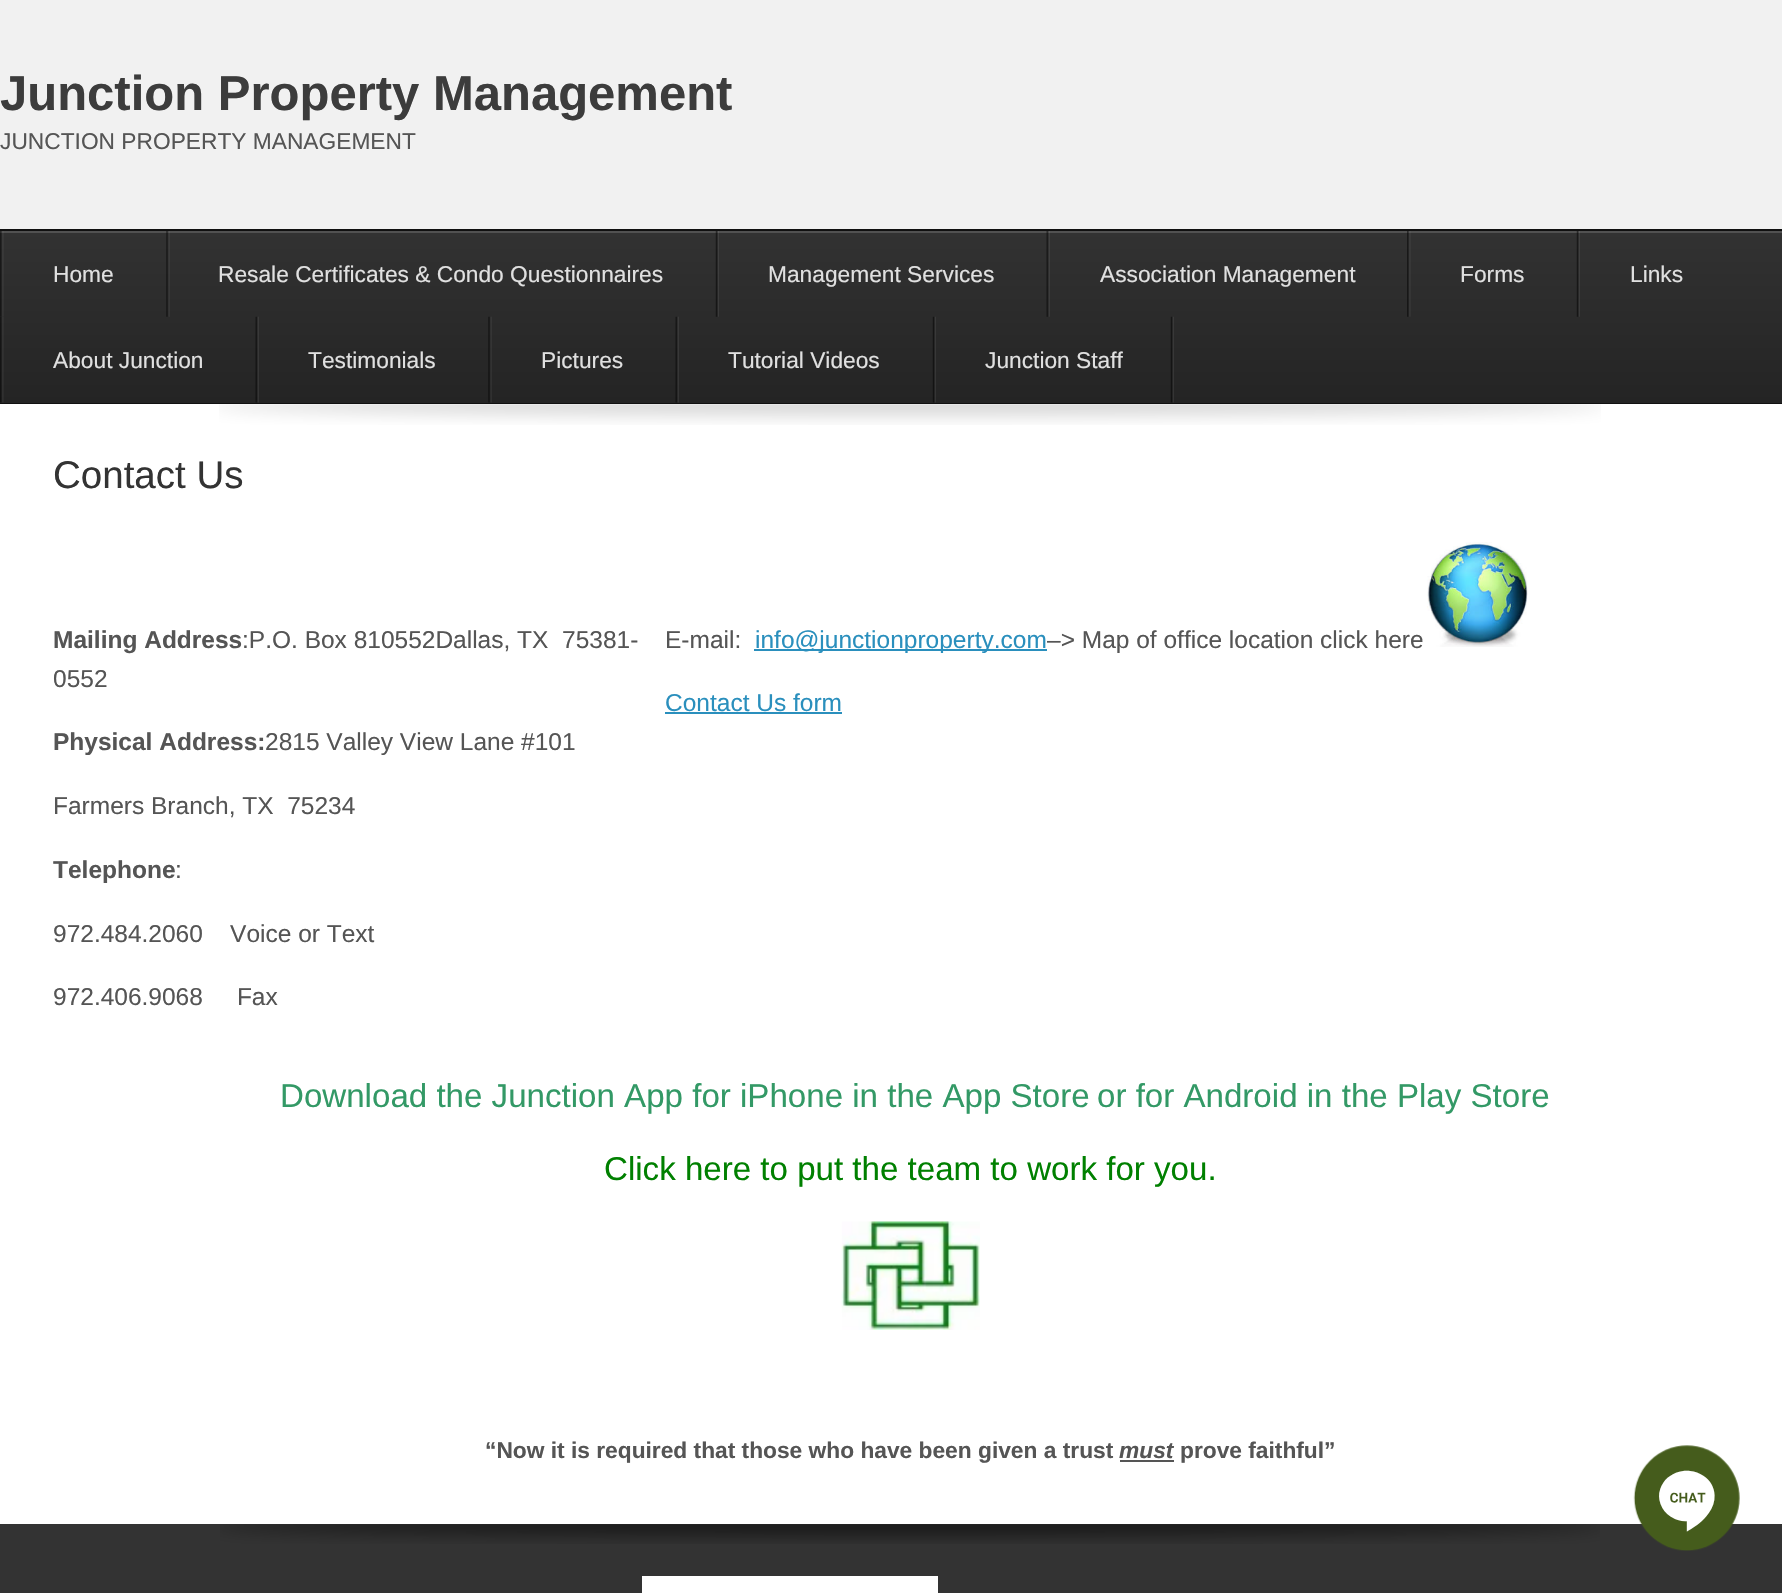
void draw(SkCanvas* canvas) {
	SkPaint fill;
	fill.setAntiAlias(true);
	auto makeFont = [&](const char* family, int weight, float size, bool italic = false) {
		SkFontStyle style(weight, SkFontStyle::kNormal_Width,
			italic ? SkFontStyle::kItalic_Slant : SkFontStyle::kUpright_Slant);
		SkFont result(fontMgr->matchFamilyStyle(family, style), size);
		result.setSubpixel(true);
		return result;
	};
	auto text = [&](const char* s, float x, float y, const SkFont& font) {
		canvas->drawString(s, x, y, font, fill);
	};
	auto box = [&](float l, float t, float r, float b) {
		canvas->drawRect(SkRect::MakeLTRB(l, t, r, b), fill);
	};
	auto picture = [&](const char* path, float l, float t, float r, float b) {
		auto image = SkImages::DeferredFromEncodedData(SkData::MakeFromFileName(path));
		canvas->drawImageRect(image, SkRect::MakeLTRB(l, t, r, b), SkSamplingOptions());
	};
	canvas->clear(0xFFF1F1F1);
	{
		const SkColor colors[] = {0xFF242424, 0xFF323232};
		const float stops[] = {0, 1};
		const SkPoint ends[] = {{0, 403}, {0, 231}};
		fill.setShader(SkGradientShader::MakeLinear(ends, colors, stops, 2, SkTileMode::kClamp));
		fill.setAlpha(255);
	}
	box(0, 233, 1782, 403);
	fill.setShader(nullptr);
	fill.setColor(0xFF515151);
	box(0, 231, 1782, 233);
	fill.setColor(0xFF101010);
	box(0, 229, 1782, 231);
	fill.setColor(0xFF111111);
	box(0, 403, 1782, 404);
	picture("image0.png", 0, 231, 4, 317);
	picture("image1.png", 166, 231, 170, 317);
	picture("image2.png", 715, 231, 719, 317);
	picture("image3.png", 1046, 231, 1050, 317);
	picture("image0.png", 1407, 231, 1411, 317);
	picture("image4.png", 1576, 231, 1580, 317);
	picture("image5.png", 0, 317, 4, 403);
	picture("image6.png", 255, 316, 259, 403);
	picture("image7.png", 488, 316, 492, 403);
	picture("image6.png", 675, 316, 679, 403);
	picture("image8.png", 932, 316, 936, 403);
	picture("image8.png", 1170, 316, 1174, 403);
	fill.setColor(0xFFFFFFFF);
	box(0, 404, 1782, 1524);
	picture("image9.png", 219, 404, 1601, 425);
	fill.setColor(0xFF2A8FBD);
	box(754, 649, 1047, 651);
	box(665, 712, 842, 714);
	picture("image11.png", 841, 1221, 980, 1330);
	fill.setColor(0xFF555555);
	box(1120, 1460, 1174, 1462);
	fill.setColor(0xFF333333);
	box(0, 1524, 1782, 1593);
	picture("image12.png", 220, 1524, 1600, 1544);
	fill.setColor(0xFFFFFFFF);
	box(642, 1576, 938, 1593);
	picture("image13.png", 1633, 1445, 1740, 1551);
	auto font1 = makeFont("Liberation Sans", 700, 49);
	fill.setColor(0xFF3C3C3C);
	text("Junction Property Management", 0, 110, font1);
	auto font2 = makeFont("Liberation Sans", 400, 22.75f);
	fill.setColor(0xFF555555);
	text("JUNCTION PROPERTY MANAGEMENT", 0, 149, font2);
	fill.setColor(0xFFE0E0E0);
	text("Home", 53, 282, font2);
	text("Resale Certificates & Condo Questionnaires", 218, 282, font2);
	text("Management Services", 768, 282, font2);
	text("Association Management", 1100, 282, font2);
	text("Forms", 1460, 282, font2);
	text("Links", 1630, 282, font2);
	text("About Junction", 53, 368, font2);
	text("Testimonials", 308, 368, font2);
	text("Pictures", 541, 368, font2);
	text("Tutorial Videos", 728, 368, font2);
	text("Junction Staff", 985, 368, font2);
	auto font3 = makeFont("Liberation Sans", 400, 38.5f);
	fill.setColor(0xFF333333);
	text("Contact Us", 53, 488, font3);
	auto font4 = makeFont("Liberation Sans", 700, 24.5f);
	fill.setColor(0xFF555555);
	text("Mailing Address", 53, 648, font4);
	auto font5 = makeFont("Liberation Sans", 400, 24.5f);
	text(":P.O. Box 810552Dallas, TX  75381-", 242, 648, font5);
	text("0552", 53, 687, font5);
	text("Physical Address:", 53, 750, font4);
	text("2815 Valley View Lane #101", 265, 750, font5);
	text("Farmers Branch, TX  75234", 53, 814, font5);
	text("Telephone", 53, 878, font4);
	text(":", 175, 878, font5);
	text("972.484.2060    Voice or Text", 53, 942, font5);
	text("972.406.9068     Fax", 53, 1005, font5);
	text("E-mail:", 665, 648, font5);
	fill.setColor(0xFF2A8FBD);
	text("info@junctionproperty.com", 755, 648, font5);
	fill.setColor(0xFF555555);
	text("–> Map of office location click here", 1047, 648, font5);
	picture("image10.png", 1422, 542, 1528, 647);
	fill.setColor(0xFF2A8FBD);
	text("Contact Us form", 665, 711, font5);
	auto font6 = makeFont("Liberation Sans", 400, 33.1f);
	fill.setColor(0xFF339966);
	text("Download the Junction App for iPhone in the App Store", 280, 1107, font6);
	text("or for Android in the Play Store", 1097, 1107, font6);
	fill.setColor(0xFF008000);
	text("Click here to put the team to work for you.", 604, 1180, font6);
	auto font7 = makeFont("Liberation Sans", 700, 22.75f);
	fill.setColor(0xFF555555);
	text("“Now it is required that those who have been given a trust", 485, 1458, font7);
	auto font8 = makeFont("Liberation Sans", 700, 22.75f, true);
	text("must", 1119, 1458, font8);
	text("prove faithful”", 1180, 1458, font7);
}
